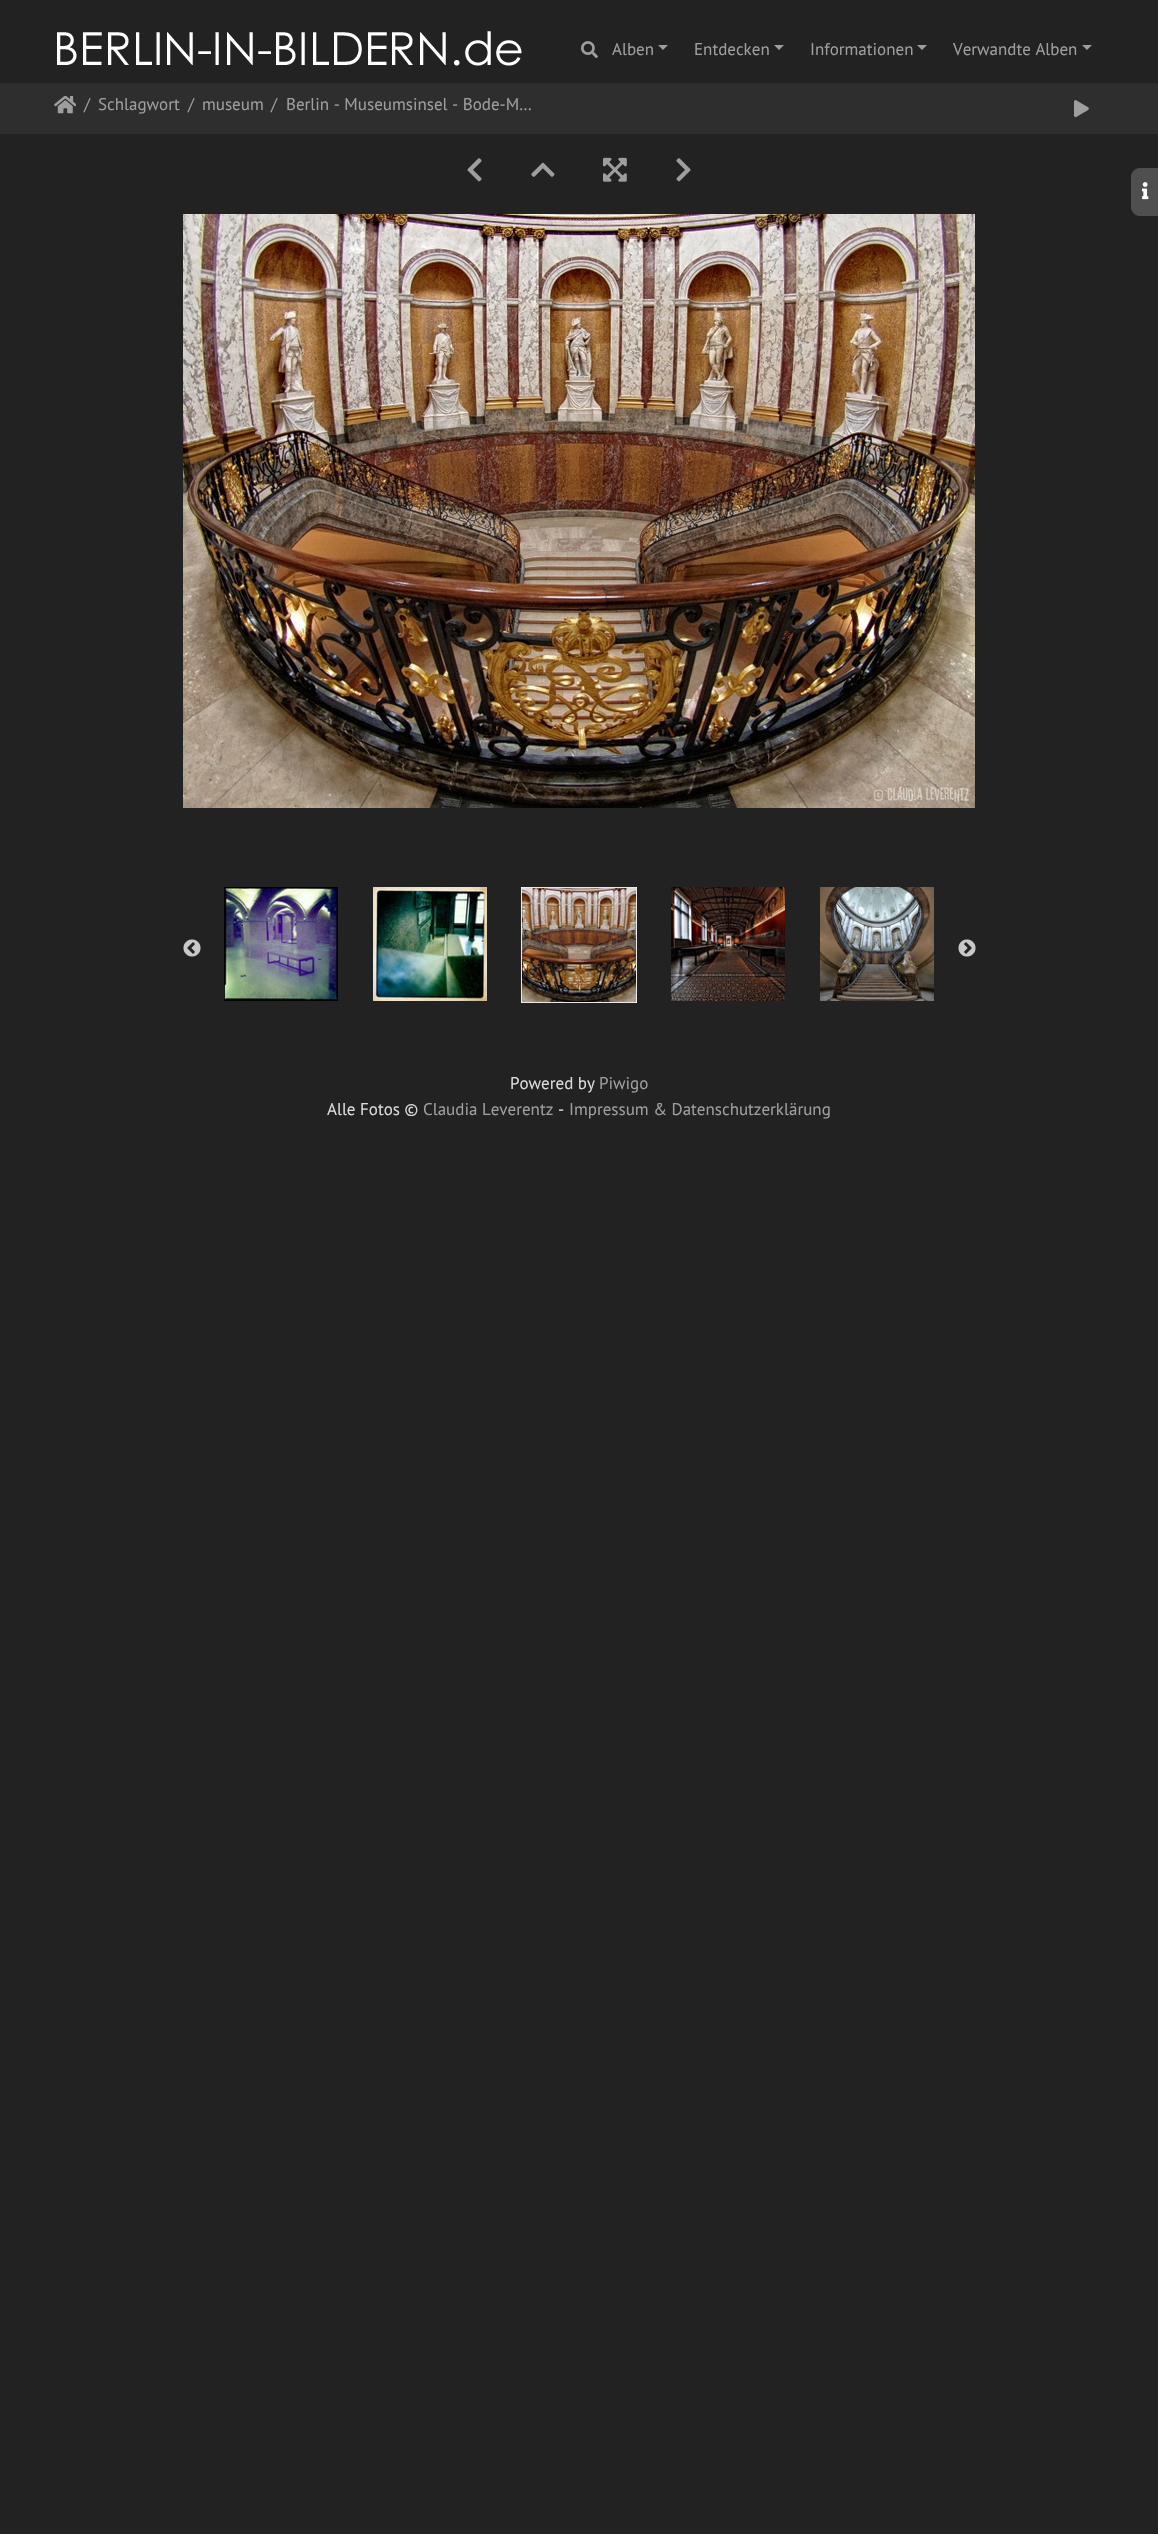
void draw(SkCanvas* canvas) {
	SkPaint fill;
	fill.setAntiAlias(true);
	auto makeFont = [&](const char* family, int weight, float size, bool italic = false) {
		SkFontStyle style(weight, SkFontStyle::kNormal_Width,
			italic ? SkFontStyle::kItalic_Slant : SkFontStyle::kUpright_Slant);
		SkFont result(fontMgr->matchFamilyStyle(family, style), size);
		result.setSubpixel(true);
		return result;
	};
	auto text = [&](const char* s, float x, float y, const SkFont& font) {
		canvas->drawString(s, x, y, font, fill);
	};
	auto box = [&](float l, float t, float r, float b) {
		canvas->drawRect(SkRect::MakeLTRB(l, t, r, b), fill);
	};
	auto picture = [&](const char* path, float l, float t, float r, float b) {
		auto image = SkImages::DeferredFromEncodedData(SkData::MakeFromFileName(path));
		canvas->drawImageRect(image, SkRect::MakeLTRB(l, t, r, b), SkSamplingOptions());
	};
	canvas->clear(0xFF222222);
	picture("image0.png", 57, 31, 522, 66);
	picture("image1.png", 581, 41, 598, 59);
	fill.setColor(0xFF9E9E9E);
	canvas->drawPath(SkPathBuilder().moveTo(658, 45).lineTo(668, 45).lineTo(663, 50).close().detach(), fill);
	canvas->drawPath(SkPathBuilder().moveTo(774, 45).lineTo(784, 45).lineTo(779, 50).close().detach(), fill);
	canvas->drawPath(SkPathBuilder().moveTo(917, 45).lineTo(927, 45).lineTo(922, 50).close().detach(), fill);
	canvas->drawPath(SkPathBuilder().moveTo(1082, 45).lineTo(1092, 45).lineTo(1087, 50).close().detach(), fill);
	fill.setColor(0xFF2E2E2E);
	box(0, 83, 1158, 134);
	picture("image2.png", 54, 96, 76, 114);
	picture("image3.png", 1074, 100, 1089, 118);
	picture("image4.png", 467, 158, 482, 182);
	picture("image5.png", 531, 162, 555, 177);
	picture("image6.png", 603, 157, 627, 182);
	picture("image7.png", 676, 158, 691, 182);
	fill.setColor(0xFF4F4F4F);
	canvas->drawPath(SkPathBuilder().moveTo(1141, 168).lineTo(1158, 168).lineTo(1158, 216).lineTo(1141, 216).cubicTo(1135.5f, 216, 1131, 211.5f, 1131, 206).lineTo(1131, 178).cubicTo(1131, 172.5f, 1135.5f, 168, 1141, 168).close().detach(), fill);
	canvas->drawPath(SkPathBuilder(SkPathFillType::kEvenOdd).moveTo(1141, 168).lineTo(1158, 168).lineTo(1158, 216).lineTo(1141, 216).cubicTo(1135, 216, 1131, 212, 1131, 206).lineTo(1131, 178).cubicTo(1131, 172, 1135, 168, 1141, 168).close().moveTo(1141, 169).lineTo(1158, 169).lineTo(1158, 215).lineTo(1141, 215).cubicTo(1136, 215, 1132, 211, 1132, 206).lineTo(1132, 178).cubicTo(1132, 173, 1136, 169, 1141, 169).close().detach(), fill);
	picture("image8.png", 1142, 182, 1149, 200);
	picture("image9.png", 183, 214, 975, 808);
	picture("image10.png", 183, 939, 201, 957);
	picture("image11.png", 224, 887, 338, 1001);
	picture("image12.png", 373, 887, 487, 1001);
	fill.setStyle(SkPaint::kStroke_Style);
	fill.setStrokeWidth(0.9f);
	fill.setColor(0xFFFFFFFF);
	canvas->drawRect(SkRect::MakeLTRB(521.45f, 887.45f, 636.55f, 1002.55f), fill);
	picture("image13.png", 522, 888, 636, 1002);
	picture("image14.png", 671, 887, 785, 1001);
	picture("image15.png", 820, 887, 934, 1001);
	picture("image16.png", 958, 939, 976, 957);
	auto font1 = makeFont("PT Sans", 400, 17);
	fill.setStyle(SkPaint::kFill_Style);
	fill.setColor(0xFF9E9E9E);
	text("Alben", 612, 55, font1);
	text("Entdecken", 694, 55, font1);
	text("Informationen", 810, 55, font1);
	text("Verwandte Alben", 953, 55, font1);
	text("/", 84, 110, font1);
	text("Schlagwort", 98, 110, font1);
	text("/", 188, 110, font1);
	text("museum", 202, 110, font1);
	text("/", 271, 110, font1);
	text("Berlin - Museumsinsel - Bode-M…", 286, 110, font1);
	fill.setColor(0xFFDBDBDB);
	text("Powered by", 510, 1089, font1);
	fill.setColor(0xFF9E9E9E);
	text("Piwigo", 599, 1089, font1);
	fill.setColor(0xFFDBDBDB);
	text("Alle Fotos ©", 327, 1115, font1);
	fill.setColor(0xFF9E9E9E);
	text("Claudia Leverentz", 423, 1115, font1);
	fill.setColor(0xFFDBDBDB);
	text("-", 558, 1115, font1);
	fill.setColor(0xFF9E9E9E);
	text("Impressum & Datenschutzerklärung", 569, 1115, font1);
}
